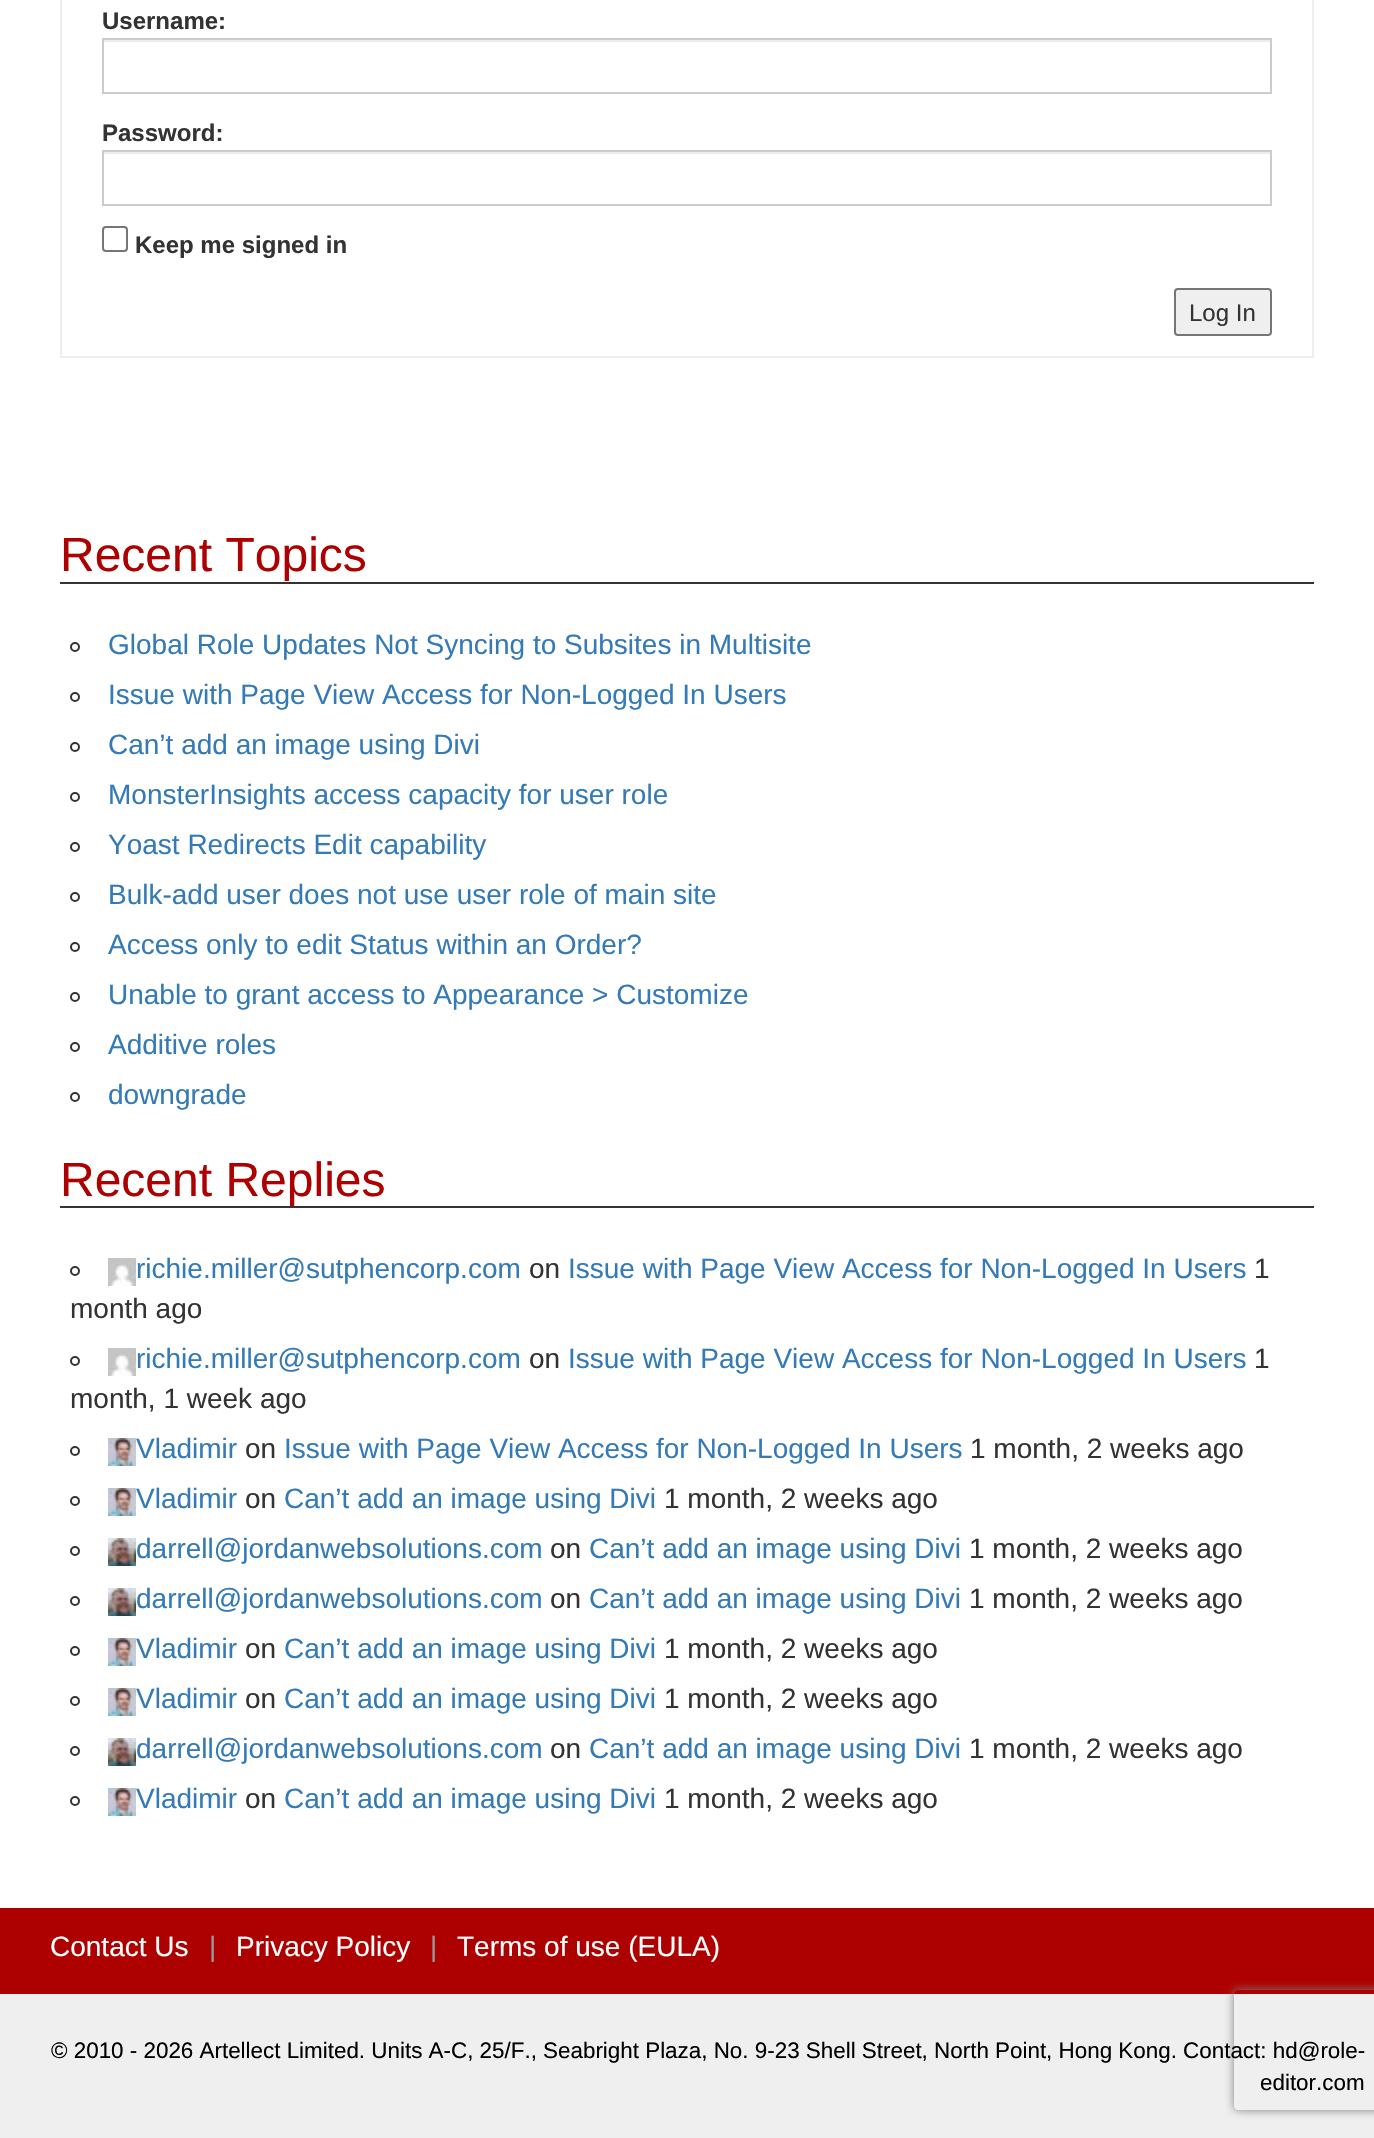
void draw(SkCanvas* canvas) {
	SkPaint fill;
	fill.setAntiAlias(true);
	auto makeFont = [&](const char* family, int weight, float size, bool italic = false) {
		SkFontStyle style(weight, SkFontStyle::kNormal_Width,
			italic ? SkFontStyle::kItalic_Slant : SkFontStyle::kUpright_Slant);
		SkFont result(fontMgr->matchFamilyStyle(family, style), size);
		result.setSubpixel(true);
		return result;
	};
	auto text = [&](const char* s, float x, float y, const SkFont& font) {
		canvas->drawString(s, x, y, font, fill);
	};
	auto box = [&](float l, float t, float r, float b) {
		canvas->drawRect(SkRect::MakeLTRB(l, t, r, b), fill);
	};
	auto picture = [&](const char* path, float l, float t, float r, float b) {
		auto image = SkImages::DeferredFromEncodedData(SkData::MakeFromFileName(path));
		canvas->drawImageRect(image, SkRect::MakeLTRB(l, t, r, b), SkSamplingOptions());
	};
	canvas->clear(0xFFFFFFFF);
	fill.setStyle(SkPaint::kStroke_Style);
	fill.setStrokeWidth(2);
	fill.setColor(0xFFEEEEEE);
	canvas->drawRect(SkRect::MakeLTRB(61, -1, 1313, 357), fill);
	fill.setStyle(SkPaint::kFill_Style);
	fill.setColor(0xFFECECEC);
	box(104, 40, 1270, 42);
	fill.setStyle(SkPaint::kStroke_Style);
	fill.setColor(0xFFCCCCCC);
	canvas->drawRect(SkRect::MakeLTRB(103, 39, 1271, 93), fill);
	fill.setStyle(SkPaint::kFill_Style);
	fill.setColor(0xFFECECEC);
	box(104, 152, 1270, 154);
	fill.setStyle(SkPaint::kStroke_Style);
	fill.setColor(0xFFCCCCCC);
	canvas->drawRect(SkRect::MakeLTRB(103, 151, 1271, 205), fill);
	fill.setColor(0xFF767676);
	canvas->drawRoundRect(SkRect::MakeLTRB(103, 227, 127, 251), 3, 3, fill);
	fill.setStyle(SkPaint::kFill_Style);
	fill.setColor(0xFFEFEFEF);
	canvas->drawRoundRect(SkRect::MakeLTRB(1175, 289, 1271, 335), 3, 3, fill);
	fill.setStyle(SkPaint::kStroke_Style);
	fill.setColor(0xFF767676);
	canvas->drawRoundRect(SkRect::MakeLTRB(1175, 289, 1271, 335), 3, 3, fill);
	fill.setStyle(SkPaint::kFill_Style);
	fill.setColor(0xFF333333);
	box(60, 582, 1314, 584);
	fill.setStyle(SkPaint::kStroke_Style);
	canvas->drawCircle(75, 647, 4, fill);
	canvas->drawCircle(75, 697, 4, fill);
	canvas->drawCircle(75, 747, 4, fill);
	canvas->drawCircle(75, 797, 4, fill);
	canvas->drawCircle(75, 847, 4, fill);
	canvas->drawCircle(75, 897, 4, fill);
	canvas->drawCircle(75, 947, 4, fill);
	canvas->drawCircle(75, 997, 4, fill);
	canvas->drawCircle(75, 1047, 4, fill);
	canvas->drawCircle(75, 1097, 4, fill);
	fill.setStyle(SkPaint::kFill_Style);
	box(60, 1206, 1314, 1208);
	fill.setStyle(SkPaint::kStroke_Style);
	canvas->drawCircle(75, 1271, 4, fill);
	picture("image0.png", 108, 1258, 136, 1286);
	canvas->drawCircle(75, 1361, 4, fill);
	picture("image0.png", 108, 1348, 136, 1376);
	canvas->drawCircle(75, 1451, 4, fill);
	picture("image1.png", 108, 1438, 136, 1466);
	canvas->drawCircle(75, 1501, 4, fill);
	picture("image1.png", 108, 1488, 136, 1516);
	canvas->drawCircle(75, 1551, 4, fill);
	picture("image2.png", 108, 1538, 136, 1566);
	canvas->drawCircle(75, 1601, 4, fill);
	picture("image2.png", 108, 1588, 136, 1616);
	canvas->drawCircle(75, 1651, 4, fill);
	picture("image1.png", 108, 1638, 136, 1666);
	canvas->drawCircle(75, 1701, 4, fill);
	picture("image1.png", 108, 1688, 136, 1716);
	canvas->drawCircle(75, 1751, 4, fill);
	picture("image2.png", 108, 1738, 136, 1766);
	canvas->drawCircle(75, 1801, 4, fill);
	picture("image1.png", 108, 1788, 136, 1816);
	fill.setStyle(SkPaint::kFill_Style);
	fill.setColor(0xFFEFEFEF);
	box(0, 1994, 1374, 2138);
	fill.setColor(0xFFAD0000);
	box(0, 1908, 1374, 1994);
	canvas->save();
	canvas->clipPath(SkPathBuilder(SkPathFillType::kEvenOdd).moveTo(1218, 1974).lineTo(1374, 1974).lineTo(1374, 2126).lineTo(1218, 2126).close().moveTo(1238, 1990).lineTo(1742, 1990).cubicTo(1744, 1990, 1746, 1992, 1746, 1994).lineTo(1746, 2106).cubicTo(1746, 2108, 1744, 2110, 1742, 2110).lineTo(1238, 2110).cubicTo(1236, 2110, 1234, 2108, 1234, 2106).lineTo(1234, 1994).cubicTo(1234, 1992, 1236, 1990, 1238, 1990).close().detach(), true);
	fill.setColor(0xFF808080);
	fill.setMaskFilter(SkMaskFilter::MakeBlur(kNormal_SkBlurStyle, 5));
	canvas->drawRoundRect(SkRect::MakeLTRB(1234, 1990, 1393, 2110), 4, 4, fill);
	fill.setMaskFilter(nullptr);
	canvas->restore();
	auto font1 = makeFont("Liberation Sans", 700, 24);
	fill.setColor(0xFF333333);
	text("Username:", 102, 29, font1);
	text("Password:", 102, 141, font1);
	text("Keep me signed in", 135, 253, font1);
	auto font2 = makeFont("Liberation Sans", 400, 24);
	text("Log In", 1189, 321, font2);
	auto font3 = makeFont("Liberation Sans", 400, 48);
	fill.setColor(0xFFAD0000);
	text("Recent Topics", 60, 571, font3);
	auto font4 = makeFont("Liberation Sans", 400, 28);
	fill.setColor(0xFF337AB7);
	text("Global Role Updates Not Syncing to Subsites in Multisite", 108, 654, font4);
	text("Issue with Page View Access for Non-Logged In Users", 108, 704, font4);
	text("Can’t add an image using Divi", 108, 754, font4);
	text("MonsterInsights access capacity for user role", 108, 804, font4);
	text("Yoast Redirects Edit capability", 108, 854, font4);
	text("Bulk-add user does not use user role of main site", 108, 904, font4);
	text("Access only to edit Status within an Order?", 108, 954, font4);
	text("Unable to grant access to Appearance > Customize", 108, 1004, font4);
	text("Additive roles", 108, 1054, font4);
	text("downgrade", 108, 1104, font4);
	fill.setColor(0xFFAD0000);
	text("Recent Replies", 60, 1196, font3);
	fill.setColor(0xFF337AB7);
	text("richie.miller@sutphencorp.com", 136, 1278, font4);
	fill.setColor(0xFF333333);
	text("on", 529, 1278, font4);
	fill.setColor(0xFF337AB7);
	text("Issue with Page View Access for Non-Logged In Users", 568, 1278, font4);
	fill.setColor(0xFF333333);
	text("1", 1254, 1278, font4);
	text("month ago", 70, 1318, font4);
	fill.setColor(0xFF337AB7);
	text("richie.miller@sutphencorp.com", 136, 1368, font4);
	fill.setColor(0xFF333333);
	text("on", 529, 1368, font4);
	fill.setColor(0xFF337AB7);
	text("Issue with Page View Access for Non-Logged In Users", 568, 1368, font4);
	fill.setColor(0xFF333333);
	text("1", 1254, 1368, font4);
	text("month, 1 week ago", 70, 1408, font4);
	fill.setColor(0xFF337AB7);
	text("Vladimir", 136, 1458, font4);
	fill.setColor(0xFF333333);
	text("on", 245, 1458, font4);
	fill.setColor(0xFF337AB7);
	text("Issue with Page View Access for Non-Logged In Users", 284, 1458, font4);
	fill.setColor(0xFF333333);
	text("1 month, 2 weeks ago", 970, 1458, font4);
	fill.setColor(0xFF337AB7);
	text("Vladimir", 136, 1508, font4);
	fill.setColor(0xFF333333);
	text("on", 245, 1508, font4);
	fill.setColor(0xFF337AB7);
	text("Can’t add an image using Divi", 284, 1508, font4);
	fill.setColor(0xFF333333);
	text("1 month, 2 weeks ago", 664, 1508, font4);
	fill.setColor(0xFF337AB7);
	text("darrell@jordanwebsolutions.com", 136, 1558, font4);
	fill.setColor(0xFF333333);
	text("on", 550, 1558, font4);
	fill.setColor(0xFF337AB7);
	text("Can’t add an image using Divi", 589, 1558, font4);
	fill.setColor(0xFF333333);
	text("1 month, 2 weeks ago", 969, 1558, font4);
	fill.setColor(0xFF337AB7);
	text("darrell@jordanwebsolutions.com", 136, 1608, font4);
	fill.setColor(0xFF333333);
	text("on", 550, 1608, font4);
	fill.setColor(0xFF337AB7);
	text("Can’t add an image using Divi", 589, 1608, font4);
	fill.setColor(0xFF333333);
	text("1 month, 2 weeks ago", 969, 1608, font4);
	fill.setColor(0xFF337AB7);
	text("Vladimir", 136, 1658, font4);
	fill.setColor(0xFF333333);
	text("on", 245, 1658, font4);
	fill.setColor(0xFF337AB7);
	text("Can’t add an image using Divi", 284, 1658, font4);
	fill.setColor(0xFF333333);
	text("1 month, 2 weeks ago", 664, 1658, font4);
	fill.setColor(0xFF337AB7);
	text("Vladimir", 136, 1708, font4);
	fill.setColor(0xFF333333);
	text("on", 245, 1708, font4);
	fill.setColor(0xFF337AB7);
	text("Can’t add an image using Divi", 284, 1708, font4);
	fill.setColor(0xFF333333);
	text("1 month, 2 weeks ago", 664, 1708, font4);
	fill.setColor(0xFF337AB7);
	text("darrell@jordanwebsolutions.com", 136, 1758, font4);
	fill.setColor(0xFF333333);
	text("on", 550, 1758, font4);
	fill.setColor(0xFF337AB7);
	text("Can’t add an image using Divi", 589, 1758, font4);
	fill.setColor(0xFF333333);
	text("1 month, 2 weeks ago", 969, 1758, font4);
	fill.setColor(0xFF337AB7);
	text("Vladimir", 136, 1808, font4);
	fill.setColor(0xFF333333);
	text("on", 245, 1808, font4);
	fill.setColor(0xFF337AB7);
	text("Can’t add an image using Divi", 284, 1808, font4);
	fill.setColor(0xFF333333);
	text("1 month, 2 weeks ago", 664, 1808, font4);
	fill.setColor(0xFFFFFFFF);
	text("Contact Us", 50, 1956, font4);
	fill.setColor(0xFF999999);
	text("|", 209, 1956, font4);
	fill.setColor(0xFFFFFFFF);
	text("Privacy Policy", 236, 1956, font4);
	fill.setColor(0xFF999999);
	text("|", 430, 1956, font4);
	fill.setColor(0xFFFFFFFF);
	text("Terms of use (EULA)", 457, 1956, font4);
	auto font5 = makeFont("Liberation Sans", 400, 22.4f);
	fill.setColor(0xFF000000);
	text("© 2010 - 2026 Artellect Limited. Units A-C, 25/F., Seabright Plaza, No. 9-23 Shell Street, North Point, Hong Kong. Contact: hd@role-", 51, 2058, font5);
	text("editor.com", 1260, 2090, font5);
}
